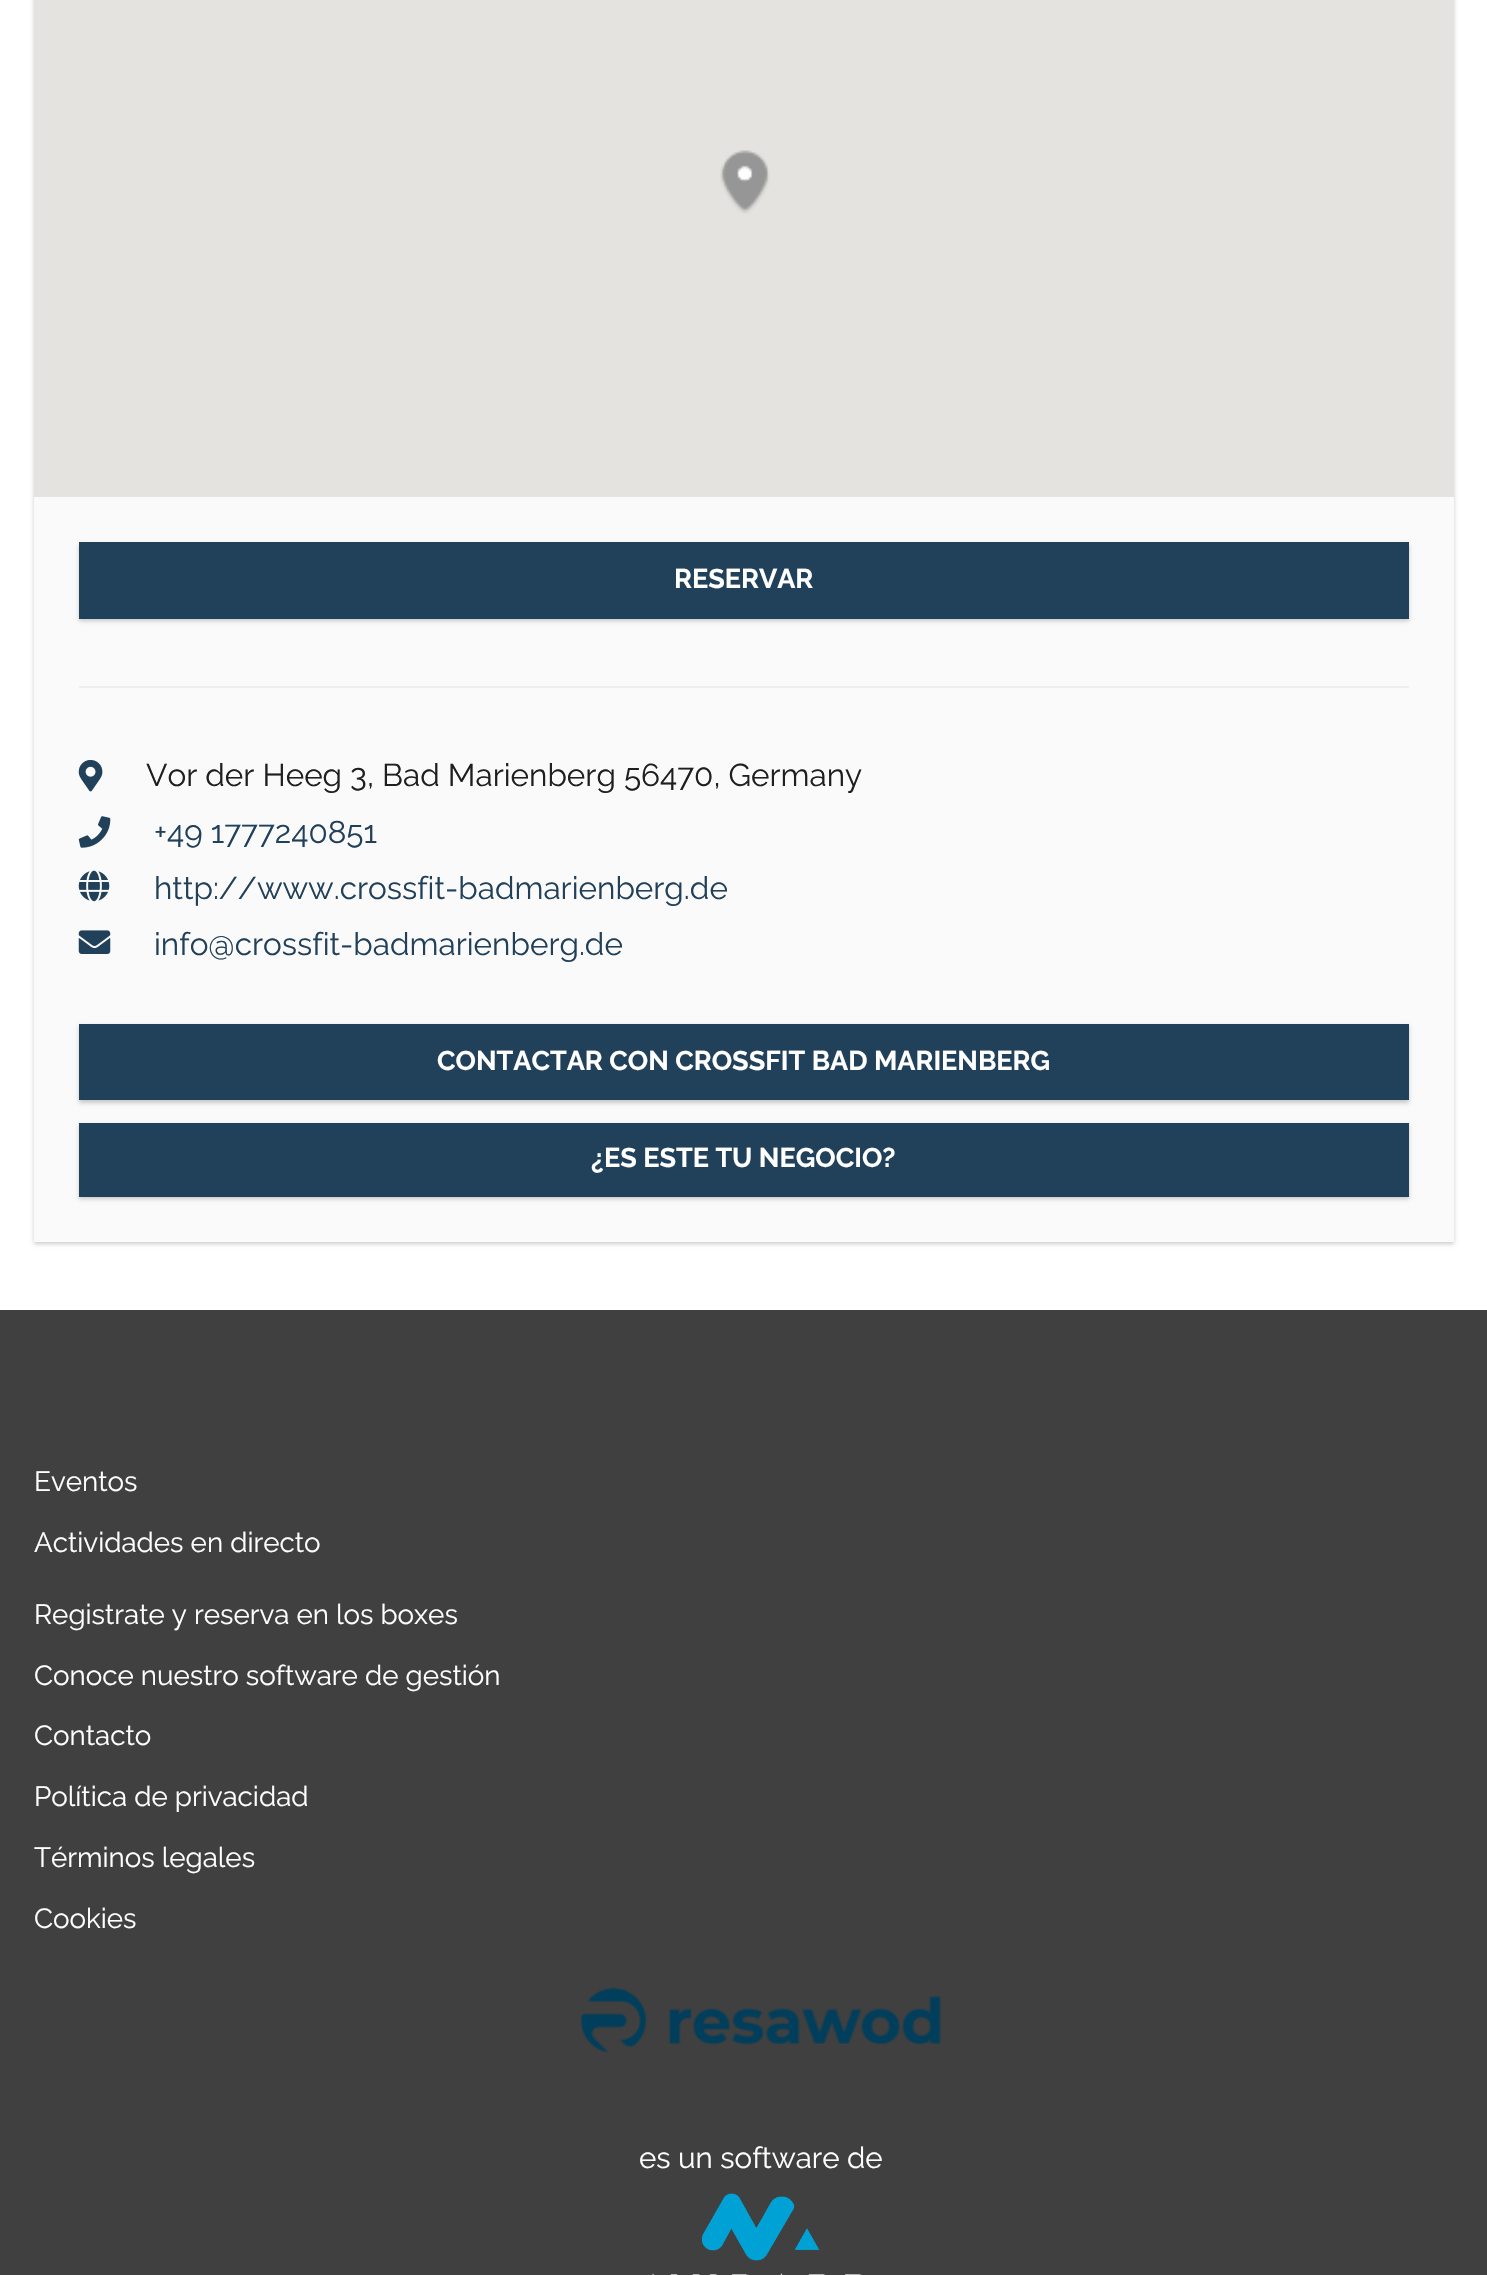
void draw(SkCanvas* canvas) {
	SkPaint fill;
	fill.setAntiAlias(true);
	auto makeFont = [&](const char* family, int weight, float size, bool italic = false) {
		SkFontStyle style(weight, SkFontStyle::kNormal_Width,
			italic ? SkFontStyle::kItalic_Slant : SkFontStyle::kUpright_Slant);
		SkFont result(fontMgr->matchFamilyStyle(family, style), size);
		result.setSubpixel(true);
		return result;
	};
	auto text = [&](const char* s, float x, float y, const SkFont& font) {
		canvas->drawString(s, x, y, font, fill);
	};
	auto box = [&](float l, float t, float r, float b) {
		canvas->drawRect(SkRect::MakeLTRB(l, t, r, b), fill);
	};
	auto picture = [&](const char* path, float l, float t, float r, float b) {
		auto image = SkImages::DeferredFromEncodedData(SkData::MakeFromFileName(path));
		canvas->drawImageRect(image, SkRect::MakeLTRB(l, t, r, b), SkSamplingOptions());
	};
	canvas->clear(0xFFFFFFFF);
	fill.setColor(0x33000000);
	fill.setMaskFilter(SkMaskFilter::MakeBlur(kNormal_SkBlurStyle, 2));
	canvas->drawRect(SkRect::MakeLTRB(34, -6, 1454, 1244), fill);
	fill.setMaskFilter(nullptr);
	fill.setColor(0xFFE5E3DF);
	box(34, 0, 1454, 497);
	picture("image0.png", 720, 150, 770, 214);
	fill.setColor(0xFFFAFAFA);
	box(34, 497, 1454, 1242);
	fill.setColor(0x33000000);
	fill.setMaskFilter(SkMaskFilter::MakeBlur(kNormal_SkBlurStyle, 2));
	canvas->drawRect(SkRect::MakeLTRB(79, 545, 1409, 621), fill);
	fill.setMaskFilter(nullptr);
	fill.setColor(0xFF21405A);
	box(79, 542, 1409, 619);
	fill.setColor(0xFFEEEEEE);
	box(79, 686, 1409, 688);
	picture("image1.png", 78, 759, 103, 792);
	picture("image2.png", 78, 816, 111, 848);
	picture("image3.png", 78, 870, 110, 902);
	picture("image4.png", 78, 930, 111, 954);
	fill.setColor(0x33000000);
	fill.setMaskFilter(SkMaskFilter::MakeBlur(kNormal_SkBlurStyle, 2));
	canvas->drawRect(SkRect::MakeLTRB(79, 1026, 1409, 1103), fill);
	fill.setMaskFilter(nullptr);
	fill.setColor(0xFF21405A);
	box(79, 1024, 1409, 1100);
	fill.setColor(0x33000000);
	fill.setMaskFilter(SkMaskFilter::MakeBlur(kNormal_SkBlurStyle, 2));
	canvas->drawRect(SkRect::MakeLTRB(79, 1125, 1409, 1199), fill);
	fill.setMaskFilter(nullptr);
	fill.setColor(0xFF21405A);
	box(79, 1123, 1409, 1197);
	fill.setColor(0xFF404040);
	box(0, 1310, 1487, 2275);
	picture("image5.png", 580, 1987, 941, 2053);
	picture("image6.png", 652, 2193, 862, 2275);
	auto font1 = makeFont("Raleway", 700, 27);
	fill.setColor(0xFFFFFFFF);
	text("RESERVAR", 674, 588, font1);
	auto font2 = makeFont("Raleway", 400, 31.5f);
	fill.setColor(0xFF1F1F1F);
	text("Vor der Heeg 3, Bad Marienberg 56470, Germany", 146, 786, font2);
	fill.setColor(0xFF21405A);
	text("+49 1777240851", 154, 843, font2);
	text("http://www.crossfit-badmarienberg.de", 154, 899, font2);
	text("info@crossfit-badmarienberg.de", 154, 955, font2);
	fill.setColor(0xFFFFFFFF);
	text("CONTACTAR CON CROSSFIT BAD MARIENBERG", 437, 1070, font1);
	text("¿ES ESTE TU NEGOCIO?", 591, 1167, font1);
	auto font3 = makeFont("Raleway", 400, 27.75f);
	text("Eventos", 34, 1491, font3);
	text("Actividades en directo", 34, 1552, font3);
	text("Registrate y reserva en los boxes", 34, 1624, font3);
	text("Conoce nuestro software de gestión", 34, 1685, font3);
	text("Contacto", 34, 1745, font3);
	text("Política de privacidad", 34, 1806, font3);
	text("Términos legales", 34, 1867, font3);
	text("Cookies", 34, 1928, font3);
	auto font4 = makeFont("Raleway", 400, 29.5f);
	text("es un software de", 639, 2168, font4);
}
